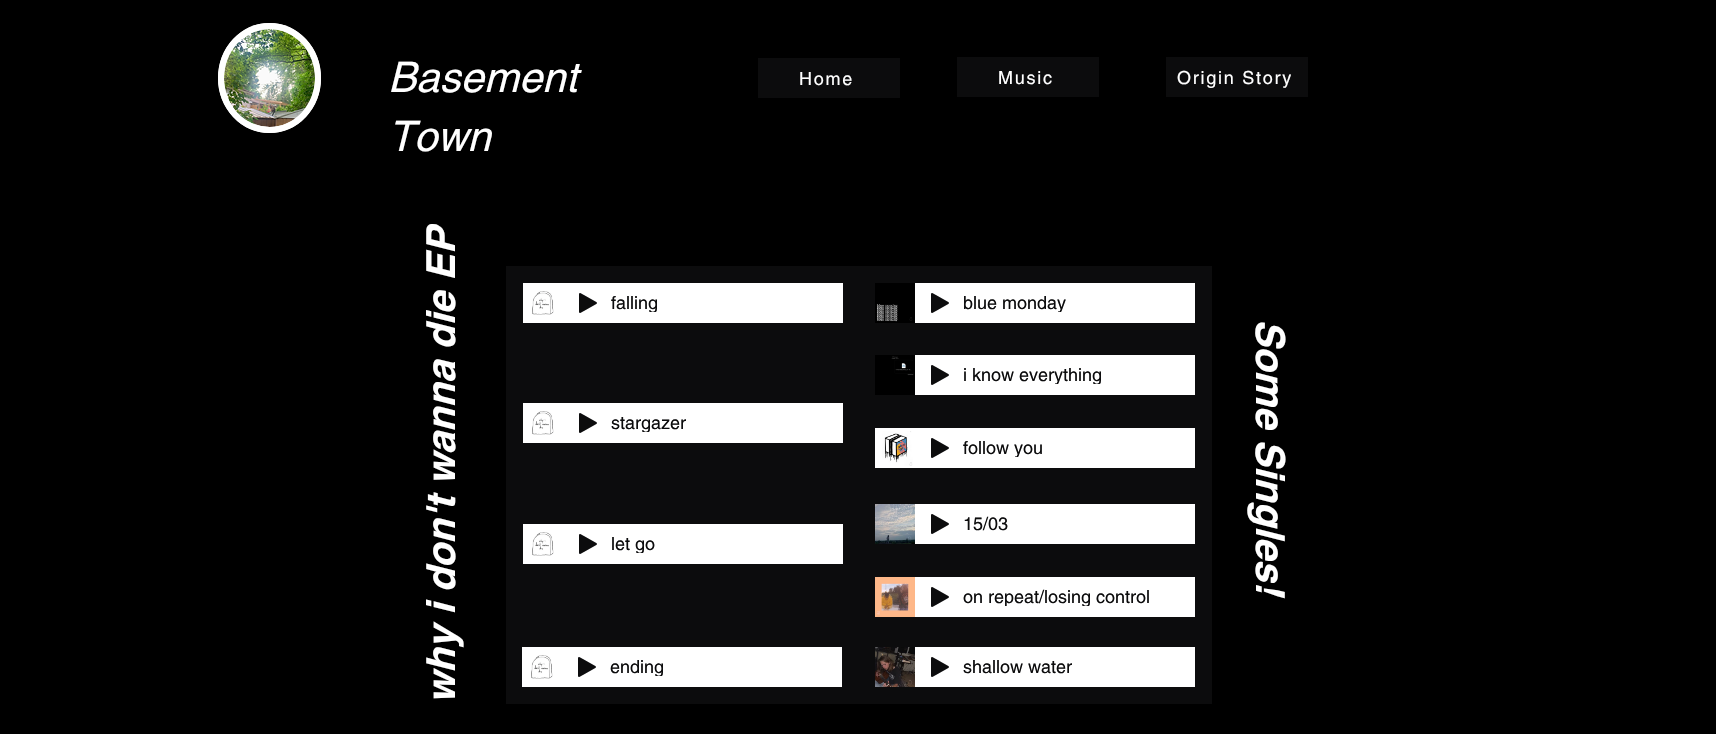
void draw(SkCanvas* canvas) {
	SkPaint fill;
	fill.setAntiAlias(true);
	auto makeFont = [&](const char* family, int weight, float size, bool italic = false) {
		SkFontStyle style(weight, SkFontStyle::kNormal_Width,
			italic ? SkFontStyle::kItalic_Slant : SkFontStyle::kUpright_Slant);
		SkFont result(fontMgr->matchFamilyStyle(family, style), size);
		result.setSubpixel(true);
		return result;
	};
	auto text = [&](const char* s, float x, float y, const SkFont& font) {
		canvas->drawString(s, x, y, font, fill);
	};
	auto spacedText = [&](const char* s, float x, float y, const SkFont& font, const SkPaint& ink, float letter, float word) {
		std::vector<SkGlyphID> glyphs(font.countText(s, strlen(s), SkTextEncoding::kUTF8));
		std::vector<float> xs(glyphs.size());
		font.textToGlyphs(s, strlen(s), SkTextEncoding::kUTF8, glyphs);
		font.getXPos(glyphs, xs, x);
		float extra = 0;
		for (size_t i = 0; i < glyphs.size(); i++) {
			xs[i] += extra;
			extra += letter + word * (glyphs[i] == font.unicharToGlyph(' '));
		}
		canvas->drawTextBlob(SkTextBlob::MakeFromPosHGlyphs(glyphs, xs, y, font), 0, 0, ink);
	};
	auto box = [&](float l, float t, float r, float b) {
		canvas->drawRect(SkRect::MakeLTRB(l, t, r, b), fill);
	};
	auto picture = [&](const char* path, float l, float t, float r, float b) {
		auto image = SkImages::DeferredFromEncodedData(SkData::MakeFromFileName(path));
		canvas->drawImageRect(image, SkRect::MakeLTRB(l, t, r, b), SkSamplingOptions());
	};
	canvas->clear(0xFF000000);
	fill.setColor(0xFFFFFFFF);
	canvas->drawOval(SkRect::MakeLTRB(218, 23, 321, 133), fill);
	fill.setStyle(SkPaint::kStroke_Style);
	fill.setStrokeWidth(6);
	canvas->drawPath(SkPathBuilder().moveTo(269.5f, 26).cubicTo(296.5f, 26, 318, 49.5f, 318, 78).cubicTo(318, 106.5f, 296.5f, 130, 269.5f, 130).cubicTo(242.5f, 130, 221, 106.5f, 221, 78).cubicTo(221, 49.5f, 242.5f, 26, 269.5f, 26).close().detach(), fill);
	picture("image0.png", 224, 29, 315, 127);
	fill.setStyle(SkPaint::kFill_Style);
	fill.setColor(0xFF0C0C0D);
	box(758, 58, 900, 98);
	box(957, 57, 1099, 97);
	box(1166, 57, 1308, 97);
	box(506, 266, 1212, 704);
	fill.setColor(0xFFFFFFFF);
	box(523, 283, 843, 323);
	picture("image1.png", 532, 291, 554, 315);
	picture("image2.png", 579, 293, 597, 313);
	box(915, 283, 1195, 323);
	picture("image3.png", 875, 283, 915, 323);
	picture("image2.png", 931, 293, 949, 313);
	box(915, 355, 1195, 395);
	picture("image4.png", 875, 355, 915, 395);
	picture("image2.png", 931, 365, 949, 385);
	box(875, 428, 1195, 468);
	picture("image5.png", 882, 431, 913, 466);
	picture("image2.png", 931, 438, 949, 458);
	box(915, 504, 1195, 544);
	picture("image6.png", 875, 504, 915, 544);
	picture("image2.png", 931, 514, 949, 534);
	box(915, 577, 1195, 617);
	picture("image7.png", 875, 577, 915, 617);
	picture("image2.png", 931, 587, 949, 607);
	box(915, 647, 1195, 687);
	picture("image8.png", 875, 647, 915, 687);
	picture("image2.png", 931, 657, 949, 677);
	box(523, 403, 843, 443);
	picture("image9.png", 532, 411, 554, 435);
	picture("image2.png", 579, 413, 597, 433);
	box(523, 524, 843, 564);
	picture("image10.png", 532, 532, 554, 556);
	picture("image2.png", 579, 534, 597, 554);
	box(522, 647, 842, 687);
	picture("image1.png", 531, 655, 553, 679);
	picture("image2.png", 578, 657, 596, 677);
	auto font1 = makeFont("helvetica", 400, 42, true);
	text("Basement", 388, 92, font1);
	text("Town", 388, 151, font1);
	auto font2 = makeFont("helvetica", 400, 18);
	spacedText("Home", 799, 85, font2, fill, 1.75f, 0);
	spacedText("Music", 998, 84, font2, fill, 1.75f, 0);
	spacedText("Origin Story", 1177, 84, font2, fill, 1.75f, 0);
	auto font3 = makeFont("helvetica", 700, 40, true);
	canvas->save();
	canvas->rotate(-90, 455, 704);
	text("why i don't wanna die EP", 455, 704, font3);
	canvas->restore();
	canvas->save();
	canvas->clipRect(SkRect::MakeLTRB(611, 294, 658, 312));
	fill.setColor(0xFF0C0C0D);
	text("falling", 611, 309, font2);
	canvas->restore();
	canvas->save();
	canvas->clipRect(SkRect::MakeLTRB(963, 294, 1066, 312));
	text("blue monday", 963, 309, font2);
	canvas->restore();
	canvas->save();
	canvas->clipRect(SkRect::MakeLTRB(963, 366, 1102, 384));
	text("i know everything", 963, 381, font2);
	canvas->restore();
	canvas->save();
	canvas->clipRect(SkRect::MakeLTRB(963, 439, 1043, 457));
	text("follow you", 963, 454, font2);
	canvas->restore();
	text("15/03", 963, 530, font2);
	canvas->save();
	canvas->clipRect(SkRect::MakeLTRB(963, 588, 1150, 606));
	text("on repeat/losing control", 963, 603, font2);
	canvas->restore();
	text("shallow water", 963, 673, font2);
	fill.setColor(0xFFFFFFFF);
	canvas->save();
	canvas->rotate(90, 1256, 319);
	text("Some Singles!", 1256, 319, font3);
	canvas->restore();
	canvas->save();
	canvas->clipRect(SkRect::MakeLTRB(611, 414, 686, 432));
	fill.setColor(0xFF0C0C0D);
	text("stargazer", 611, 429, font2);
	canvas->restore();
	canvas->save();
	canvas->clipRect(SkRect::MakeLTRB(611, 535, 655, 553));
	text("let go", 611, 550, font2);
	canvas->restore();
	canvas->save();
	canvas->clipRect(SkRect::MakeLTRB(610, 658, 664, 676));
	text("ending", 610, 673, font2);
	canvas->restore();
}
